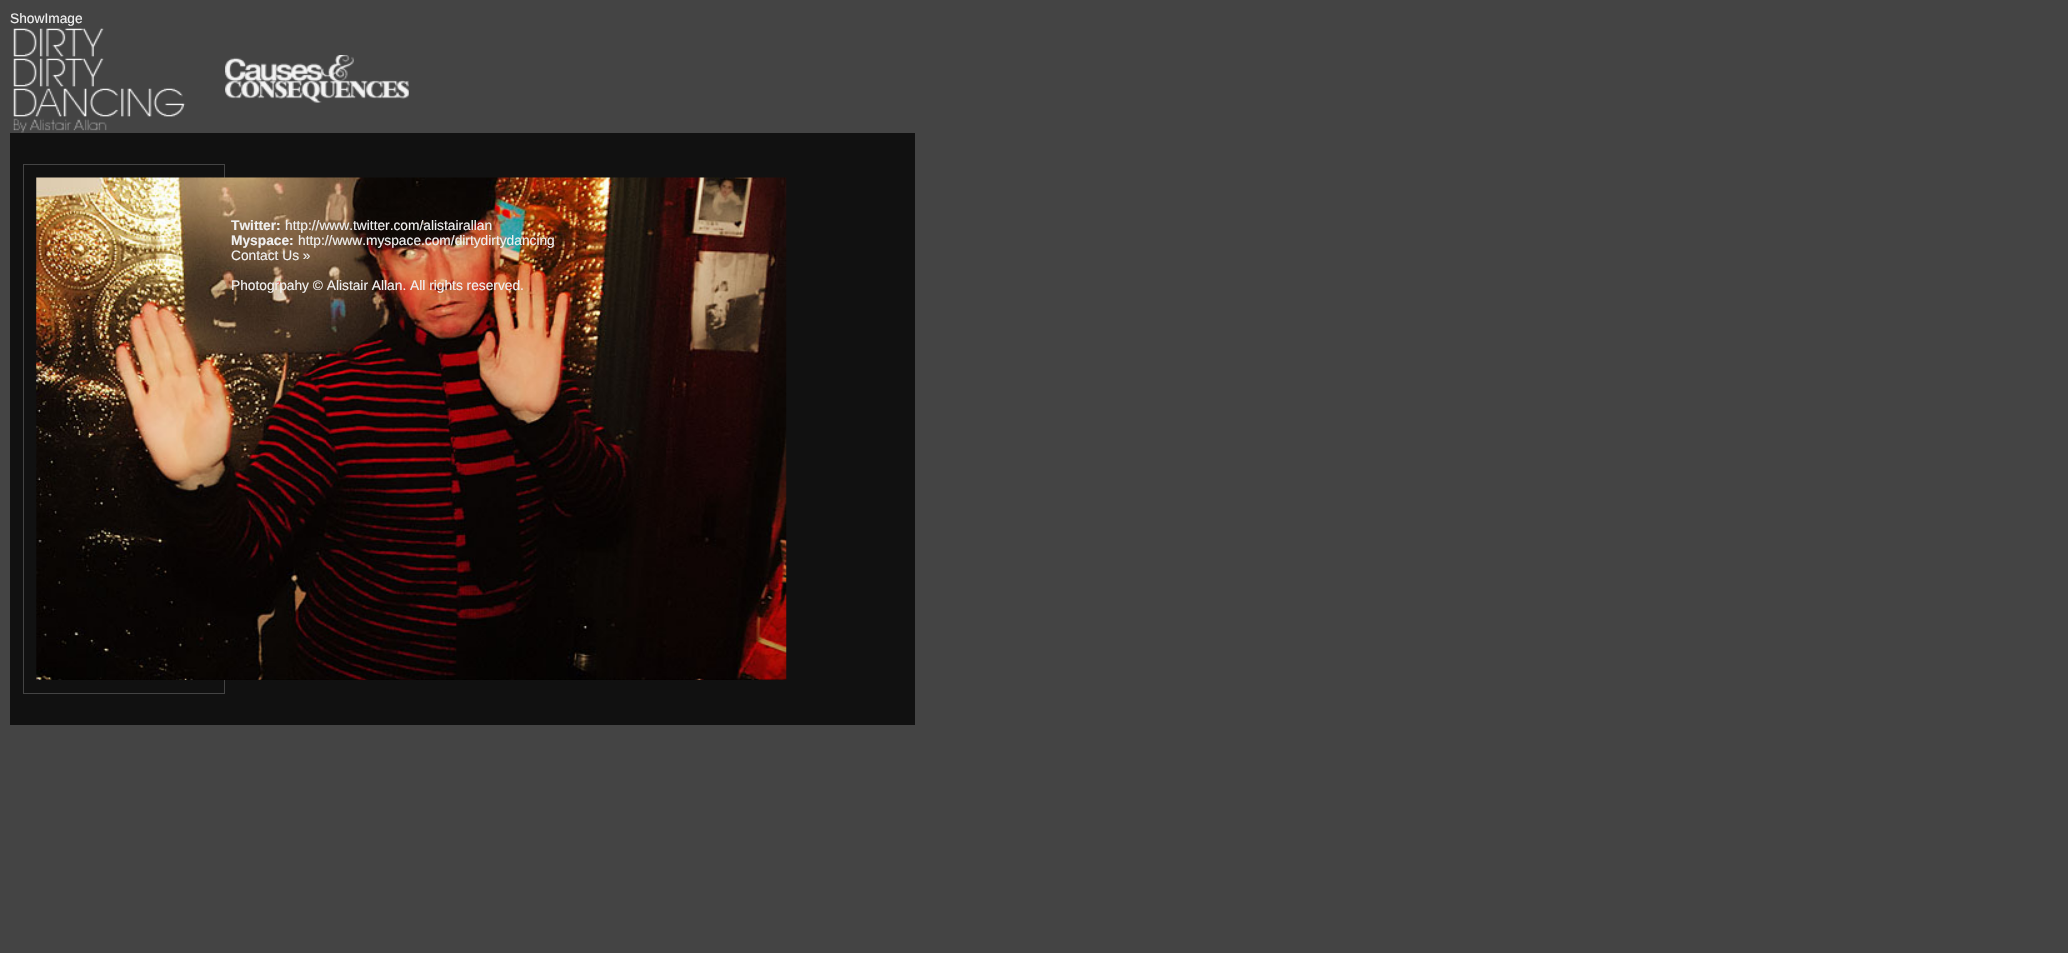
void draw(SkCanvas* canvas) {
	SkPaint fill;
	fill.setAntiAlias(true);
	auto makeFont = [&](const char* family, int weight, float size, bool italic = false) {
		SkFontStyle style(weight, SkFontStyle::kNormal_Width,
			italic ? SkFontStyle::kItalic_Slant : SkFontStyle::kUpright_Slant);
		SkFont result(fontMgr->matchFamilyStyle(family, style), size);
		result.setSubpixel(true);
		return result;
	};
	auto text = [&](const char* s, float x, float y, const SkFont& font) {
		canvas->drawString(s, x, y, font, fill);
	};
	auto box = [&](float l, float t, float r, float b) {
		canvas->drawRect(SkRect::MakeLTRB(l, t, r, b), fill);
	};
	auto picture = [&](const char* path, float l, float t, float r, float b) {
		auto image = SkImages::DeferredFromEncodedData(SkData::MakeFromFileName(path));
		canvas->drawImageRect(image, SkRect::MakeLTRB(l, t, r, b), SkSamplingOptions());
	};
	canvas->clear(0xFF444444);
	picture("image0.png", 13, 28, 186, 133);
	picture("image1.png", 225, 55, 409, 103);
	fill.setColor(0xFF111111);
	box(10, 133, 915, 725);
	fill.setStyle(SkPaint::kStroke_Style);
	fill.setStrokeWidth(1);
	fill.setColor(0xFF444444);
	canvas->drawRect(SkRect::MakeLTRB(23.5f, 164.5f, 224.5f, 693.5f), fill);
	picture("image2.png", 36, 177, 787, 680);
	auto font1 = makeFont("Liberation Sans", 400, 13.75f);
	fill.setStyle(SkPaint::kFill_Style);
	fill.setColor(0xFFF0F0F0);
	text("ShowImage", 10, 23, font1);
	auto font2 = makeFont("Liberation Sans", 700, 13.75f);
	text("Twitter:", 231, 230, font2);
	text("http://www.twitter.com/alistairallan", 285, 230, font1);
	text("Myspace:", 231, 245, font2);
	text("http://www.myspace.com/dirtydirtydancing", 298, 245, font1);
	text("Contact Us »", 231, 260, font1);
	text("Photogrpahy © Alistair Allan. All rights reserved.", 231, 290, font1);
}
